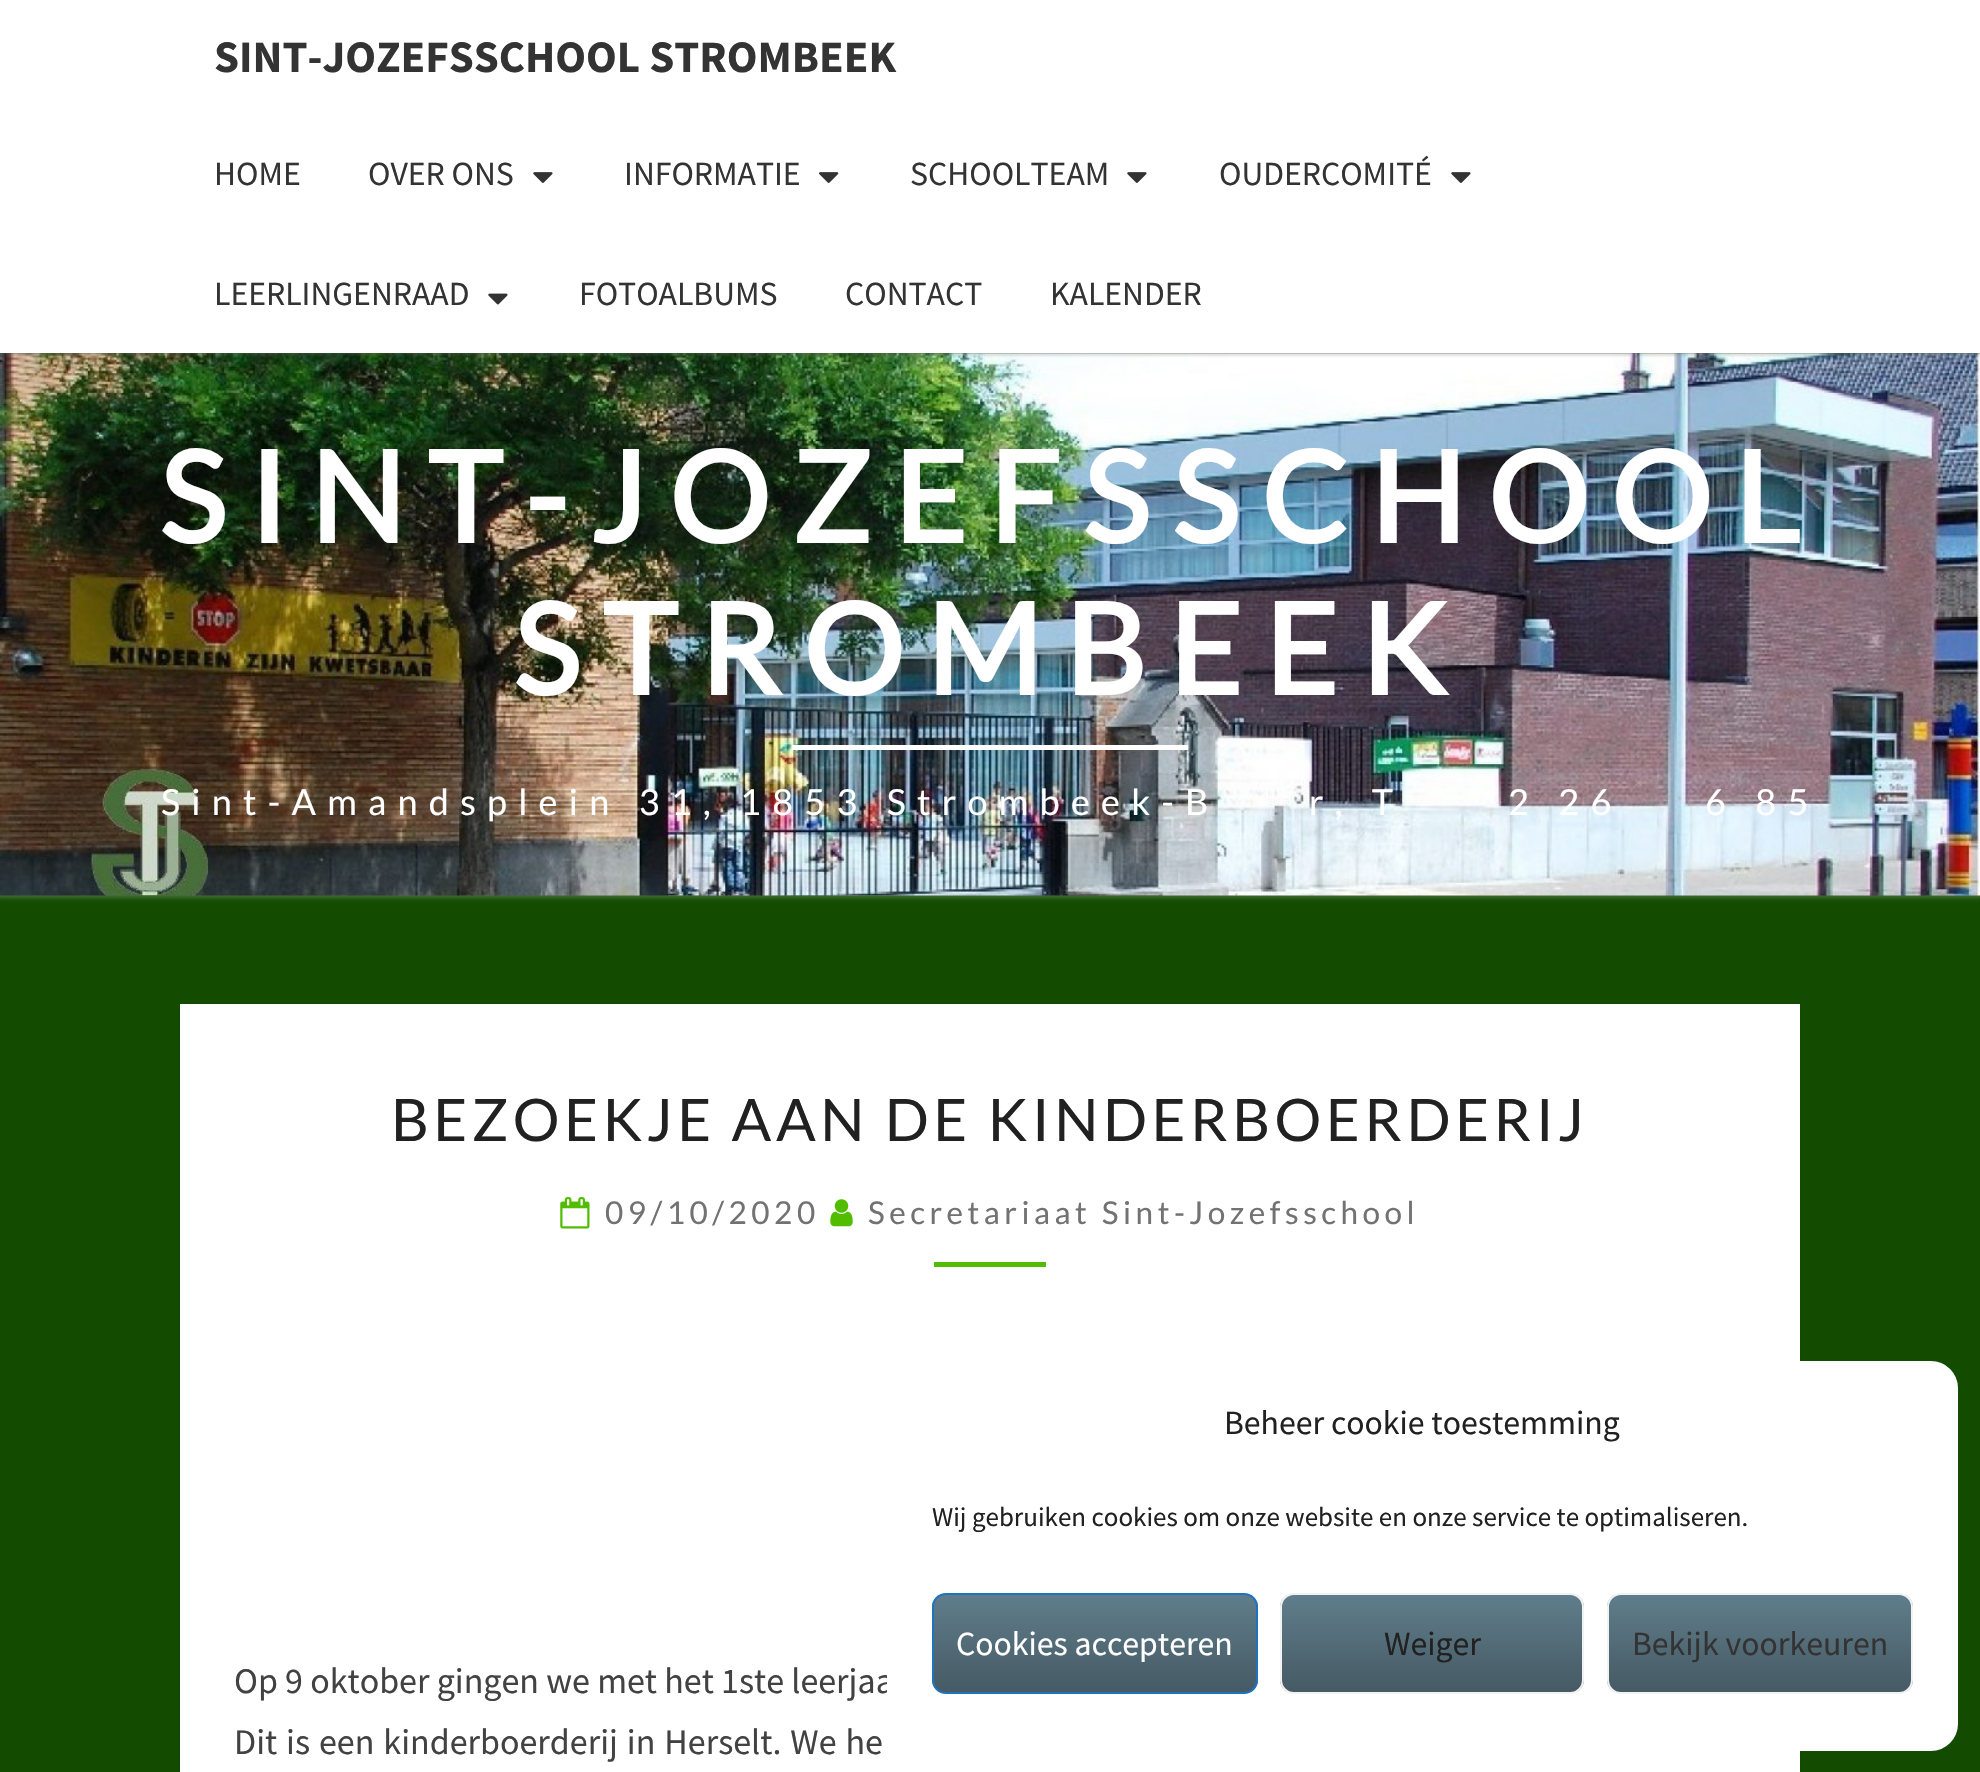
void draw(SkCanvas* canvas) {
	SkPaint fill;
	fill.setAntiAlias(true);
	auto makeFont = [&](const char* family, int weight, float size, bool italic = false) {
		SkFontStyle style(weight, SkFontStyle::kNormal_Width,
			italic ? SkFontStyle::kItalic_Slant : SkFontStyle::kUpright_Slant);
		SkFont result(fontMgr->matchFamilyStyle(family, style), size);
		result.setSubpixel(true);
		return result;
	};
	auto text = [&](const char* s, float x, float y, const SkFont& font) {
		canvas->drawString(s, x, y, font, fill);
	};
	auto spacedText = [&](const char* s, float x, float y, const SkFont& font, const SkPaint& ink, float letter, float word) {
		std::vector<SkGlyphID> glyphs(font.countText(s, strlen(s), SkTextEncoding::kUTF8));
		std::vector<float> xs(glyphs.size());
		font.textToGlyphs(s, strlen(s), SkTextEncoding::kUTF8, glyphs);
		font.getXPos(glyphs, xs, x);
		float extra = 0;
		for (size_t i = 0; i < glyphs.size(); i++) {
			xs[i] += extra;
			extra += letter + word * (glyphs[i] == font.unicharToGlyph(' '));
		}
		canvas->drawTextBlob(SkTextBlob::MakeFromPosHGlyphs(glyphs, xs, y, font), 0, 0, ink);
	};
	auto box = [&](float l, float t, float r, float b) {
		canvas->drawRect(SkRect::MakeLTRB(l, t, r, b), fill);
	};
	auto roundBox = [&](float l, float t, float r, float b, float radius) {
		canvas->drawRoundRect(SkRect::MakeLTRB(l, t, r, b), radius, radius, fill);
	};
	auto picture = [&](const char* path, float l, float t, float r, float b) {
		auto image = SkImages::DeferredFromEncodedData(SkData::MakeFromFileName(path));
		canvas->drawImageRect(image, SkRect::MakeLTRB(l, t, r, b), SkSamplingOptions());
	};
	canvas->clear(0xFF134C00);
	fill.setColor(0x4DB6B6B6);
	fill.setMaskFilter(SkMaskFilter::MakeBlur(kNormal_SkBlurStyle, 2));
	canvas->drawRect(SkRect::MakeLTRB(-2, 351, 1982, 898), fill);
	fill.setMaskFilter(nullptr);
	picture("image3.png", 0, 353, 1980, 896);
	fill.setColor(0x33646464);
	fill.setMaskFilter(SkMaskFilter::MakeBlur(kNormal_SkBlurStyle, 1));
	canvas->drawRect(SkRect::MakeLTRB(0, 2, 1980, 356), fill);
	fill.setMaskFilter(nullptr);
	fill.setColor(0xFFFFFFFF);
	box(0, 0, 1980, 353);
	picture("image0.png", 533, 172, 553, 183);
	picture("image1.png", 819, 172, 839, 183);
	picture("image0.png", 1127, 172, 1147, 183);
	picture("image0.png", 1451, 172, 1471, 183);
	picture("image2.png", 488, 293, 508, 305);
	box(792, 745, 1188, 750);
	fill.setColor(0x26000000);
	fill.setMaskFilter(SkMaskFilter::MakeBlur(kNormal_SkBlurStyle, 1));
	canvas->drawRect(SkRect::MakeLTRB(180, 1004, 1800, 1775), fill);
	fill.setMaskFilter(nullptr);
	fill.setColor(0xFFFFFFFF);
	box(180, 1004, 1800, 1772);
	picture("image4.png", 560, 1197, 590, 1229);
	picture("image5.png", 830, 1199, 853, 1227);
	fill.setColor(0xFF52BC01);
	box(934, 1262, 1046, 1267);
	auto font1 = makeFont("Source Sans Pro", 700, 45);
	fill.setColor(0xFF333333);
	text("SINT-JOZEFSSCHOOL STROMBEEK", 214, 72, font1);
	auto font2 = makeFont("Source Sans Pro", 400, 33.75f);
	text("HOME", 214, 185, font2);
	text("OVER ONS", 368, 185, font2);
	text("INFORMATIE", 624, 185, font2);
	text("SCHOOLTEAM", 910, 185, font2);
	text("OUDERCOMITÉ", 1219, 185, font2);
	text("LEERLINGENRAAD", 214, 305, font2);
	text("FOTOALBUMS", 579, 305, font2);
	text("CONTACT", 845, 305, font2);
	text("KALENDER", 1050, 305, font2);
	auto font3 = makeFont("Lato", 700, 126);
	fill.setColor(0xFFFFFFFF);
	spacedText("SINT-JOZEFSSCHOOL", 159, 543, font3, fill, 22.5f, 0);
	spacedText("STROMBEEK", 513, 695, font3, fill, 22.5f, 0);
	auto font4 = makeFont("Lato", 400, 36);
	spacedText("Sint-Amandsplein 31, 1853 Strombeek-B", 161, 815, font4, fill, 11.25f, 0);
	spacedText("r, T", 1309, 815, font4, fill, 11.25f, 0);
	spacedText("2 26", 1508, 815, font4, fill, 11.25f, 0);
	spacedText("6 85", 1705, 815, font4, fill, 11.25f, 0);
	auto font5 = makeFont("Lato", 400, 58.5f);
	fill.setColor(0xFF212121);
	spacedText("BEZOEKJE AAN DE KINDERBOERDERIJ", 391, 1141, font5, fill, 4.5f, 0);
	auto font6 = makeFont("Lato", 400, 31.5f);
	fill.setColor(0xFF727272);
	spacedText("09/10/2020", 605, 1224, font6, fill, 4.5f, 0);
	spacedText("Secretariaat Sint-Jozefsschool", 868, 1224, font6, fill, 4.5f, 0);
	auto font7 = makeFont("Source Sans Pro", 400, 36);
	fill.setColor(0xFF424242);
	text("Op 9 oktober gingen we met het 1ste leerjaa", 234, 1693, font7);
	spacedText("Dit is een kinderboerderij in Herselt. We he", 234, 1754, font7, fill, 0, 1.75f);
	fill.setColor(0xFFFFFFFF);
	roundBox(887, 1361, 1958, 1751, 27);
	fill.setColor(0xFF212121);
	text("Beheer cookie toestemming", 1224, 1434, font2);
	auto font8 = makeFont("Source Sans Pro", 400, 27);
	text("Wij gebruiken cookies om onze website en onze service te optimaliseren.", 932, 1526, font8);
	canvas->save();
	canvas->clipPath(SkPathBuilder().moveTo(946, 1593).lineTo(1244, 1593).cubicTo(1251.5f, 1593, 1258, 1599.5f, 1258, 1607).lineTo(1258, 1680).cubicTo(1258, 1687.5f, 1251.5f, 1694, 1244, 1694).lineTo(946, 1694).cubicTo(938.5f, 1694, 932, 1687.5f, 932, 1680).lineTo(932, 1607).cubicTo(932, 1599.5f, 938.5f, 1593, 946, 1593).close().detach(), true);
	{
		const SkColor colors[] = {0xFF607D8B, 0xFF455A64};
		const float stops[] = {0, 1};
		const SkPoint ends[] = {{1095, 1595}, {1095, 1692}};
		fill.setShader(SkGradientShader::MakeLinear(ends, colors, stops, 2, SkTileMode::kClamp));
		fill.setAlpha(255);
	}
	box(932, 1595, 1258, 1692);
	canvas->restore();
	fill.setStyle(SkPaint::kStroke_Style);
	fill.setStrokeWidth(2);
	fill.setShader(nullptr);
	fill.setColor(0xFF1E73BE);
	canvas->drawRoundRect(SkRect::MakeLTRB(933, 1594, 1257, 1693), 13, 13, fill);
	fill.setStyle(SkPaint::kFill_Style);
	fill.setColor(0xFFFFFFFF);
	text("Cookies accepteren", 956, 1655, font2);
	canvas->save();
	canvas->clipPath(SkPathBuilder().moveTo(1294, 1593).lineTo(1570, 1593).cubicTo(1577.5f, 1593, 1584, 1599.5f, 1584, 1607).lineTo(1584, 1680).cubicTo(1584, 1687.5f, 1577.5f, 1694, 1570, 1694).lineTo(1294, 1694).cubicTo(1286.5f, 1694, 1280, 1687.5f, 1280, 1680).lineTo(1280, 1607).cubicTo(1280, 1599.5f, 1286.5f, 1593, 1294, 1593).close().detach(), true);
	{
		const SkColor colors[] = {0xFF607D8B, 0xFF455A64};
		const float stops[] = {0, 1};
		const SkPoint ends[] = {{1432, 1595}, {1432, 1692}};
		fill.setShader(SkGradientShader::MakeLinear(ends, colors, stops, 2, SkTileMode::kClamp));
		fill.setAlpha(255);
	}
	box(1280, 1595, 1584, 1692);
	canvas->restore();
	fill.setStyle(SkPaint::kStroke_Style);
	fill.setShader(nullptr);
	fill.setColor(0xFFF2F2F2);
	canvas->drawRoundRect(SkRect::MakeLTRB(1281, 1594, 1583, 1693), 13, 13, fill);
	fill.setStyle(SkPaint::kFill_Style);
	fill.setColor(0xFF212121);
	text("Weiger", 1384, 1655, font2);
	canvas->save();
	canvas->clipPath(SkPathBuilder().moveTo(1621, 1593).lineTo(1899, 1593).cubicTo(1906.5f, 1593, 1913, 1599.5f, 1913, 1607).lineTo(1913, 1680).cubicTo(1913, 1687.5f, 1906.5f, 1694, 1899, 1694).lineTo(1621, 1694).cubicTo(1613.5f, 1694, 1607, 1687.5f, 1607, 1680).lineTo(1607, 1607).cubicTo(1607, 1599.5f, 1613.5f, 1593, 1621, 1593).close().detach(), true);
	{
		const SkColor colors[] = {0xFF607D8B, 0xFF455A64};
		const float stops[] = {0, 1};
		const SkPoint ends[] = {{1760, 1595}, {1760, 1692}};
		fill.setShader(SkGradientShader::MakeLinear(ends, colors, stops, 2, SkTileMode::kClamp));
		fill.setAlpha(255);
	}
	box(1607, 1595, 1913, 1692);
	canvas->restore();
	fill.setStyle(SkPaint::kStroke_Style);
	fill.setShader(nullptr);
	fill.setColor(0xFFF2F2F2);
	canvas->drawRoundRect(SkRect::MakeLTRB(1608, 1594, 1912, 1693), 13, 13, fill);
	fill.setStyle(SkPaint::kFill_Style);
	fill.setColor(0xFF333333);
	text("Bekijk voorkeuren", 1632, 1655, font2);
}
